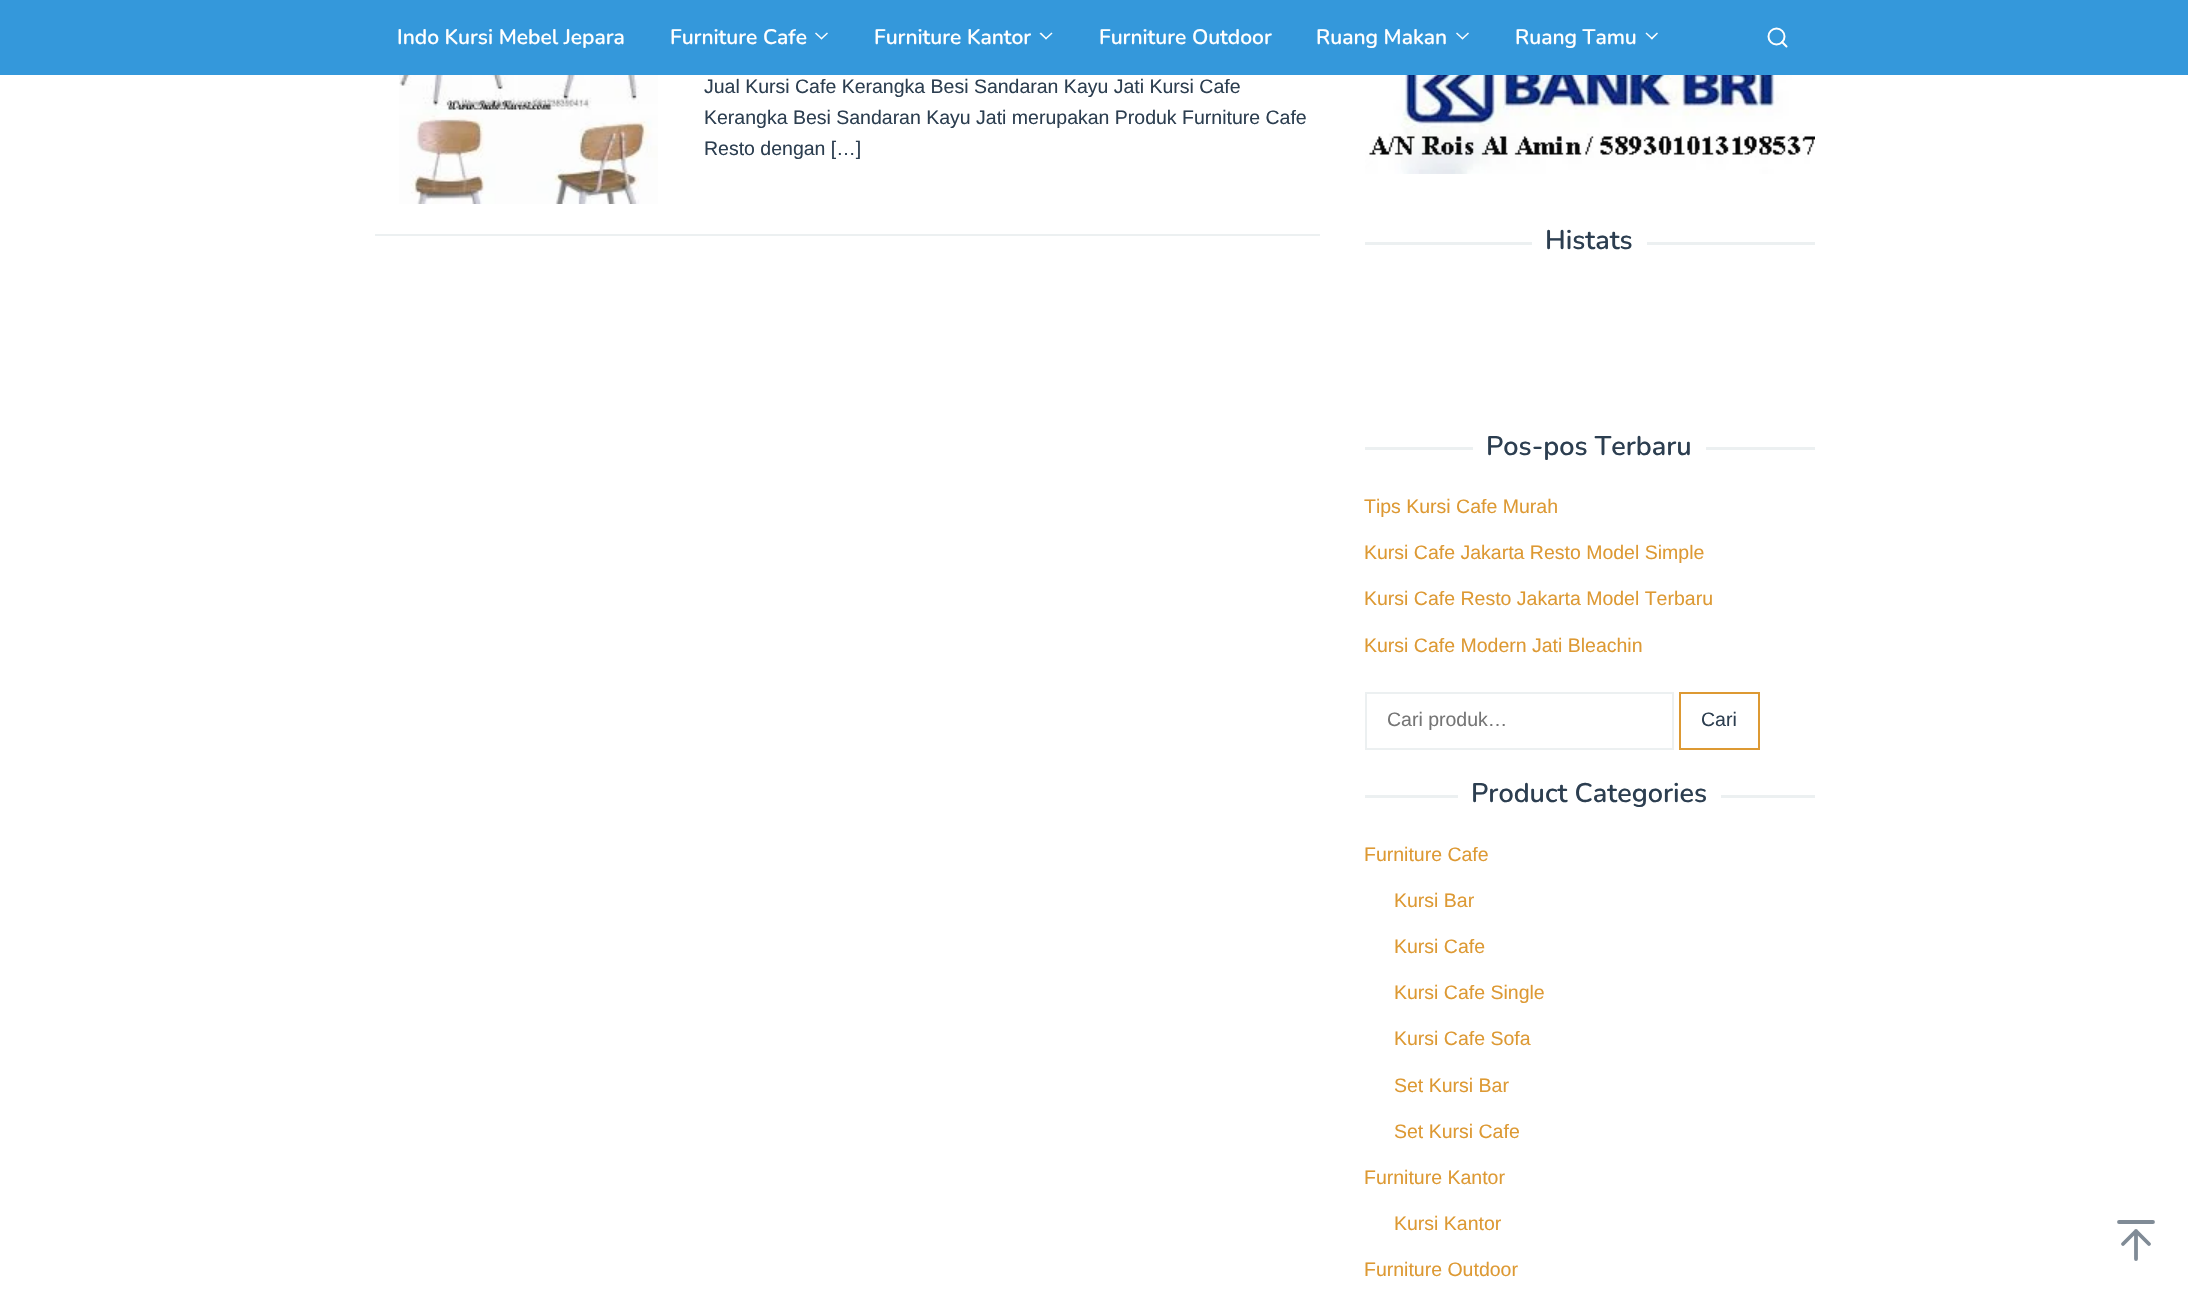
void draw(SkCanvas* canvas) {
	SkPaint fill;
	fill.setAntiAlias(true);
	auto makeFont = [&](const char* family, int weight, float size, bool italic = false) {
		SkFontStyle style(weight, SkFontStyle::kNormal_Width,
			italic ? SkFontStyle::kItalic_Slant : SkFontStyle::kUpright_Slant);
		SkFont result(fontMgr->matchFamilyStyle(family, style), size);
		result.setSubpixel(true);
		return result;
	};
	auto text = [&](const char* s, float x, float y, const SkFont& font) {
		canvas->drawString(s, x, y, font, fill);
	};
	auto box = [&](float l, float t, float r, float b) {
		canvas->drawRect(SkRect::MakeLTRB(l, t, r, b), fill);
	};
	auto picture = [&](const char* path, float l, float t, float r, float b) {
		auto image = SkImages::DeferredFromEncodedData(SkData::MakeFromFileName(path));
		canvas->drawImageRect(image, SkRect::MakeLTRB(l, t, r, b), SkSamplingOptions());
	};
	canvas->clear(0xFFFFFFFF);
	fill.setColor(0xFF3498DB);
	box(0, 0, 2188, 75);
	fill.setColor(0xFFFFFFFF);
	canvas->drawPath(SkPathBuilder().moveTo(827, 32.5f).lineTo(828, 33.5f).lineTo(821.5f, 39.5f).lineTo(820.5f, 38.5f).close().detach(), fill);
	canvas->drawPath(SkPathBuilder().moveTo(816, 32.5f).lineTo(822.5f, 38.5f).lineTo(821.5f, 39.5f).lineTo(815, 33.5f).close().detach(), fill);
	canvas->drawPath(SkPathBuilder().moveTo(1051.5f, 32.5f).lineTo(1052.5f, 33.5f).lineTo(1046, 39.5f).lineTo(1045, 38.5f).close().detach(), fill);
	canvas->drawPath(SkPathBuilder().moveTo(1041, 32.5f).lineTo(1047, 38.5f).lineTo(1046, 39.5f).lineTo(1039.5f, 33.5f).close().detach(), fill);
	canvas->drawPath(SkPathBuilder().moveTo(1468, 32.5f).lineTo(1469, 33.5f).lineTo(1462.5f, 39.5f).lineTo(1461.5f, 38.5f).close().detach(), fill);
	canvas->drawPath(SkPathBuilder().moveTo(1457, 32.5f).lineTo(1463.5f, 38.5f).lineTo(1462.5f, 39.5f).lineTo(1456, 33.5f).close().detach(), fill);
	canvas->drawPath(SkPathBuilder().moveTo(1657, 32.5f).lineTo(1658, 33.5f).lineTo(1652, 39.5f).lineTo(1650.5f, 38.5f).close().detach(), fill);
	canvas->drawPath(SkPathBuilder().moveTo(1646.5f, 32.5f).lineTo(1653, 38.5f).lineTo(1652, 39.5f).lineTo(1645.5f, 33.5f).close().detach(), fill);
	fill.setStyle(SkPaint::kStroke_Style);
	fill.setStrokeWidth(2);
	canvas->drawCircle(1776.5f, 36.5f, 8, fill);
	fill.setStrokeCap(SkPaint::kRound_Cap);
	fill.setStrokeJoin(SkPaint::kRound_Join);
	canvas->drawPath(SkPathBuilder().moveTo(1786.5f, 46.5f).lineTo(1782, 42).detach(), fill);
	fill.setStyle(SkPaint::kFill_Style);
	fill.setColor(0xFFECF0F1);
	box(375, 234, 1320, 236);
	picture("image0.png", 399, 75, 658, 204);
	picture("image1.png", 1365, 75, 1815, 174);
	box(1365, 242, 1532, 245);
	box(1647, 242, 1815, 245);
	box(1365, 447, 1473, 450);
	box(1706, 447, 1815, 450);
	fill.setStyle(SkPaint::kStroke_Style);
	fill.setStrokeCap(SkPaint::kButt_Cap);
	fill.setStrokeJoin(SkPaint::kMiter_Join);
	canvas->drawRect(SkRect::MakeLTRB(1366, 693, 1673, 749), fill);
	fill.setColor(0xFFDD9933);
	canvas->drawRect(SkRect::MakeLTRB(1680, 693, 1759, 749), fill);
	fill.setStyle(SkPaint::kFill_Style);
	fill.setColor(0xFFECF0F1);
	box(1365, 795, 1458, 798);
	box(1721, 795, 1815, 798);
	fill.setStyle(SkPaint::kStroke_Style);
	fill.setStrokeWidth(3.8f);
	fill.setStrokeCap(SkPaint::kRound_Cap);
	fill.setStrokeJoin(SkPaint::kRound_Join);
	fill.setColor(0xFF808B96);
	canvas->drawPath(SkPathBuilder().moveTo(2136, 1259).lineTo(2136, 1231).moveTo(2123, 1244).lineTo(2136, 1231).lineTo(2149, 1244).moveTo(2119, 1222).lineTo(2153, 1222).detach(), fill);
	auto font1 = makeFont("Nunito", 600, 21);
	fill.setStyle(SkPaint::kFill_Style);
	fill.setColor(0xFFFFFFFF);
	text("Indo Kursi Mebel Jepara", 397, 44, font1);
	text("Furniture Cafe", 670, 44, font1);
	text("Furniture Kantor", 874, 44, font1);
	text("Furniture Outdoor", 1099, 44, font1);
	text("Ruang Makan", 1316, 44, font1);
	text("Ruang Tamu", 1515, 44, font1);
	auto font2 = makeFont("Liberation Sans", 400, 19.5f);
	fill.setColor(0xFF2C3E50);
	text("Jual Kursi Cafe Kerangka Besi Sandaran Kayu Jati Kursi Cafe", 704, 93, font2);
	text("Kerangka Besi Sandaran Kayu Jati merupakan Produk Furniture Cafe", 704, 124, font2);
	text("Resto dengan […]", 704, 155, font2);
	auto font3 = makeFont("Nunito", 600, 27);
	text("Histats", 1545, 249, font3);
	text("Pos-pos Terbaru", 1486, 455, font3);
	fill.setColor(0xFFDD9933);
	text("Tips Kursi Cafe Murah", 1364, 513, font2);
	text("Kursi Cafe Jakarta Resto Model Simple", 1364, 559, font2);
	text("Kursi Cafe Resto Jakarta Model Terbaru", 1364, 605, font2);
	text("Kursi Cafe Modern Jati Bleachin", 1364, 652, font2);
	canvas->save();
	canvas->clipRect(SkRect::MakeLTRB(1388, 708, 1646, 731));
	fill.setColor(0xFF757575);
	text("Cari produk…", 1387, 726, font2);
	canvas->restore();
	fill.setColor(0xFF2C3E50);
	text("Cari", 1701, 726, font2);
	text("Product Categories", 1471, 802, font3);
	fill.setColor(0xFFDD9933);
	text("Furniture Cafe", 1364, 861, font2);
	text("Kursi Bar", 1394, 907, font2);
	text("Kursi Cafe", 1394, 953, font2);
	text("Kursi Cafe Single", 1394, 999, font2);
	text("Kursi Cafe Sofa", 1394, 1045, font2);
	text("Set Kursi Bar", 1394, 1092, font2);
	text("Set Kursi Cafe", 1394, 1138, font2);
	text("Furniture Kantor", 1364, 1184, font2);
	text("Kursi Kantor", 1394, 1230, font2);
	text("Furniture Outdoor", 1364, 1276, font2);
}
